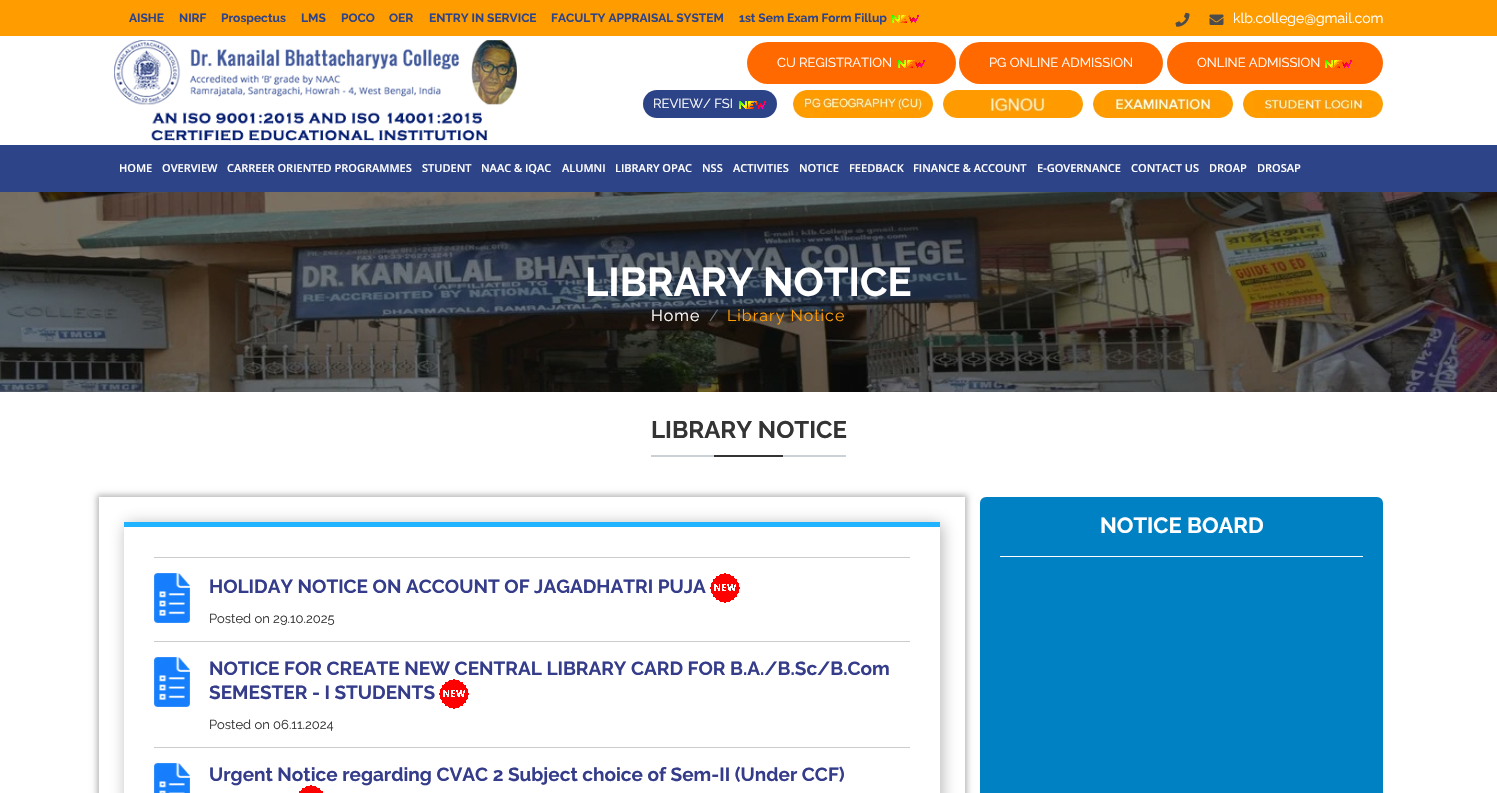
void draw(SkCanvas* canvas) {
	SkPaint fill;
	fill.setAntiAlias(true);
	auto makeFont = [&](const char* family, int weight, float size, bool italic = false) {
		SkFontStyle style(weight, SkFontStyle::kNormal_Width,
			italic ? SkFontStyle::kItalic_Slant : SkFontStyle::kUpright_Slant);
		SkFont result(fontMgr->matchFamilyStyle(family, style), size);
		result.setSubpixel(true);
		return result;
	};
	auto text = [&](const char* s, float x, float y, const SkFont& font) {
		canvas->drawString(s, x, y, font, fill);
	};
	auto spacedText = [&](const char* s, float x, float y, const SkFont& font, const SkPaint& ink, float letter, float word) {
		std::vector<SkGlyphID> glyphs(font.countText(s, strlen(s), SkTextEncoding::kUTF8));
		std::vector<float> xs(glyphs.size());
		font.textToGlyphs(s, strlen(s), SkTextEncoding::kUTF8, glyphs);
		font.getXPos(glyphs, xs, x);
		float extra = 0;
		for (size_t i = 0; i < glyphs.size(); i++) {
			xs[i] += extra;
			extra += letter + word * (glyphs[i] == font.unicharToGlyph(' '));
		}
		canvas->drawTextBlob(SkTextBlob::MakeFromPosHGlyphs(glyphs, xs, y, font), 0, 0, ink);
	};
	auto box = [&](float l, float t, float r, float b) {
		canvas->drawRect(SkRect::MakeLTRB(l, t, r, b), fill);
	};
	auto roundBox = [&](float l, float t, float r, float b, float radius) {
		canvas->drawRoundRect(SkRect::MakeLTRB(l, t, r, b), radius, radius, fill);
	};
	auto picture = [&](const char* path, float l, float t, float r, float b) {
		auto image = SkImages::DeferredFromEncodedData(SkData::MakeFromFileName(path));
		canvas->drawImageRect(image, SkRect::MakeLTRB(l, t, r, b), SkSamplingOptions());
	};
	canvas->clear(0xFFFFFFFF);
	fill.setColor(0xFFFF9C00);
	box(0, 0, 1497, 36);
	picture("image0.png", 892, 15, 919, 23);
	picture("image1.png", 1175, 12, 1190, 27);
	picture("image2.png", 1209, 14, 1224, 25);
	picture("image3.png", 114, 40, 517, 141);
	fill.setColor(0xFFFF6900);
	roundBox(747, 42, 956, 84, 21);
	picture("image4.png", 898, 60, 925, 68);
	roundBox(959, 42, 1163, 84, 21);
	roundBox(1167, 42, 1383, 84, 21);
	picture("image4.png", 1325, 60, 1352, 68);
	fill.setColor(0xFF2D4387);
	roundBox(643, 90, 777, 118, 14);
	picture("image5.png", 739, 101, 766, 109);
	picture("image6.png", 793, 90, 933, 118);
	picture("image7.png", 943, 90, 1083, 118);
	picture("image8.png", 1093, 90, 1233, 118);
	picture("image9.png", 1243, 90, 1383, 118);
	fill.setColor(0xFF2E4489);
	box(0, 145, 1497, 192);
	picture("image10.png", 0, 192, 1497, 392);
	fill.setColor(0xFFCAD2D8);
	box(651, 455, 846, 457);
	fill.setColor(0xFF343434);
	box(714, 455, 783, 457);
	fill.setColor(0xFF0081C4);
	roundBox(980, 497, 1383, 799, 6);
	fill.setColor(0xFFFFFFFF);
	box(1000, 556, 1363, 557);
	canvas->save();
	canvas->clipPath(SkPathBuilder(SkPathFillType::kEvenOdd).moveTo(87, 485).lineTo(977, 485).lineTo(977, 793).lineTo(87, 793).close().moveTo(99, 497).lineTo(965, 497).lineTo(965, 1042).lineTo(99, 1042).close().detach(), true);
	fill.setColor(0x4A000000);
	fill.setMaskFilter(SkMaskFilter::MakeBlur(kNormal_SkBlurStyle, 3));
	canvas->drawRect(SkRect::MakeLTRB(97, 495, 967, 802), fill);
	fill.setMaskFilter(nullptr);
	canvas->restore();
	canvas->save();
	canvas->clipPath(SkPathBuilder(SkPathFillType::kEvenOdd).moveTo(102, 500).lineTo(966, 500).lineTo(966, 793).lineTo(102, 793).close().moveTo(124, 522).lineTo(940, 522).lineTo(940, 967).lineTo(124, 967).close().detach(), true);
	fill.setColor(0x80696969);
	fill.setMaskFilter(SkMaskFilter::MakeBlur(kNormal_SkBlurStyle, 7.5f));
	canvas->drawRect(SkRect::MakeLTRB(126, 524, 942, 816), fill);
	fill.setMaskFilter(nullptr);
	canvas->restore();
	fill.setColor(0xFF20B3FF);
	box(124, 522, 940, 527);
	picture("image11.png", 154, 573, 190, 623);
	fill.setColor(0xFFCCCCCC);
	box(154, 557, 910, 558);
	picture("image12.png", 710, 573, 740, 603);
	picture("image11.png", 154, 657, 190, 707);
	box(154, 641, 910, 642);
	picture("image12.png", 439, 679, 469, 709);
	picture("image13.png", 154, 763, 190, 793);
	box(154, 747, 910, 748);
	auto font1 = makeFont("Raleway", 700, 12);
	fill.setColor(0xFF2E4489);
	text("AISHE", 129, 22, font1);
	text("NIRF", 179, 22, font1);
	text("Prospectus", 221, 22, font1);
	text("LMS", 301, 22, font1);
	text("POCO", 341, 22, font1);
	text("OER", 389, 22, font1);
	text("ENTRY IN SERVICE", 429, 22, font1);
	text("FACULTY APPRAISAL SYSTEM", 551, 22, font1);
	text("1st Sem Exam Form Fillup", 739, 22, font1);
	auto font2 = makeFont("Raleway", 400, 14);
	fill.setColor(0xFFFFFFFF);
	text("klb.college@gmail.com", 1233, 23, font2);
	auto font3 = makeFont("Raleway", 400, 13);
	text("CU REGISTRATION", 777, 67, font3);
	text("PG ONLINE ADMISSION", 989, 67, font3);
	text("ONLINE ADMISSION", 1197, 67, font3);
	text("REVIEW/ FSI", 653, 108, font3);
	auto font4 = makeFont("Open Sans", 600, 11);
	text("HOME", 119, 172, font4);
	text("OVERVIEW", 162, 172, font4);
	text("CARREER ORIENTED PROGRAMMES", 227, 172, font4);
	text("STUDENT", 422, 172, font4);
	text("NAAC & IQAC", 481, 172, font4);
	text("ALUMNI", 562, 172, font4);
	text("LIBRARY OPAC", 615, 172, font4);
	text("NSS", 702, 172, font4);
	text("ACTIVITIES", 733, 172, font4);
	text("NOTICE", 799, 172, font4);
	text("FEEDBACK", 849, 172, font4);
	text("FINANCE & ACCOUNT", 913, 172, font4);
	text("E-GOVERNANCE", 1037, 172, font4);
	text("CONTACT US", 1131, 172, font4);
	text("DROAP", 1209, 172, font4);
	text("DROSAP", 1257, 172, font4);
	auto font5 = makeFont("Raleway", 700, 40);
	text("LIBRARY NOTICE", 585, 296, font5);
	auto font6 = makeFont("Raleway", 400, 16);
	spacedText("Home", 651, 321, font6, fill, 1, 0);
	fill.setColor(0xFF6C757D);
	spacedText("/", 709, 321, font6, fill, 1, 0);
	fill.setColor(0xFFFF9C00);
	spacedText("Library Notice", 727, 321, font6, fill, 1, 0);
	auto font7 = makeFont("Raleway", 700, 24);
	fill.setColor(0xFF343434);
	text("LIBRARY NOTICE", 651, 438, font7);
	auto font8 = makeFont("Raleway", 700, 22);
	fill.setColor(0xFFFFFFFF);
	text("NOTICE BOARD", 1100, 533, font8);
	auto font9 = makeFont("Raleway", 700, 19);
	fill.setColor(0xFF353D8B);
	text("HOLIDAY NOTICE ON ACCOUNT OF JAGADHATRI PUJA", 209, 593, font9);
	fill.setColor(0xFF343434);
	text("Posted on 29.10.2025", 209, 623, font3);
	fill.setColor(0xFF353D8B);
	text("NOTICE FOR CREATE NEW CENTRAL LIBRARY CARD FOR B.A./B.Sc/B.Com", 209, 675, font9);
	text("SEMESTER - I STUDENTS", 209, 699, font9);
	fill.setColor(0xFF343434);
	text("Posted on 06.11.2024", 209, 729, font3);
	fill.setColor(0xFF353D8B);
	text("Urgent Notice regarding CVAC 2 Subject choice of Sem-II (Under CCF)", 209, 781, font9);
	picture("image14.png", 299, 785, 323, 793);
}
